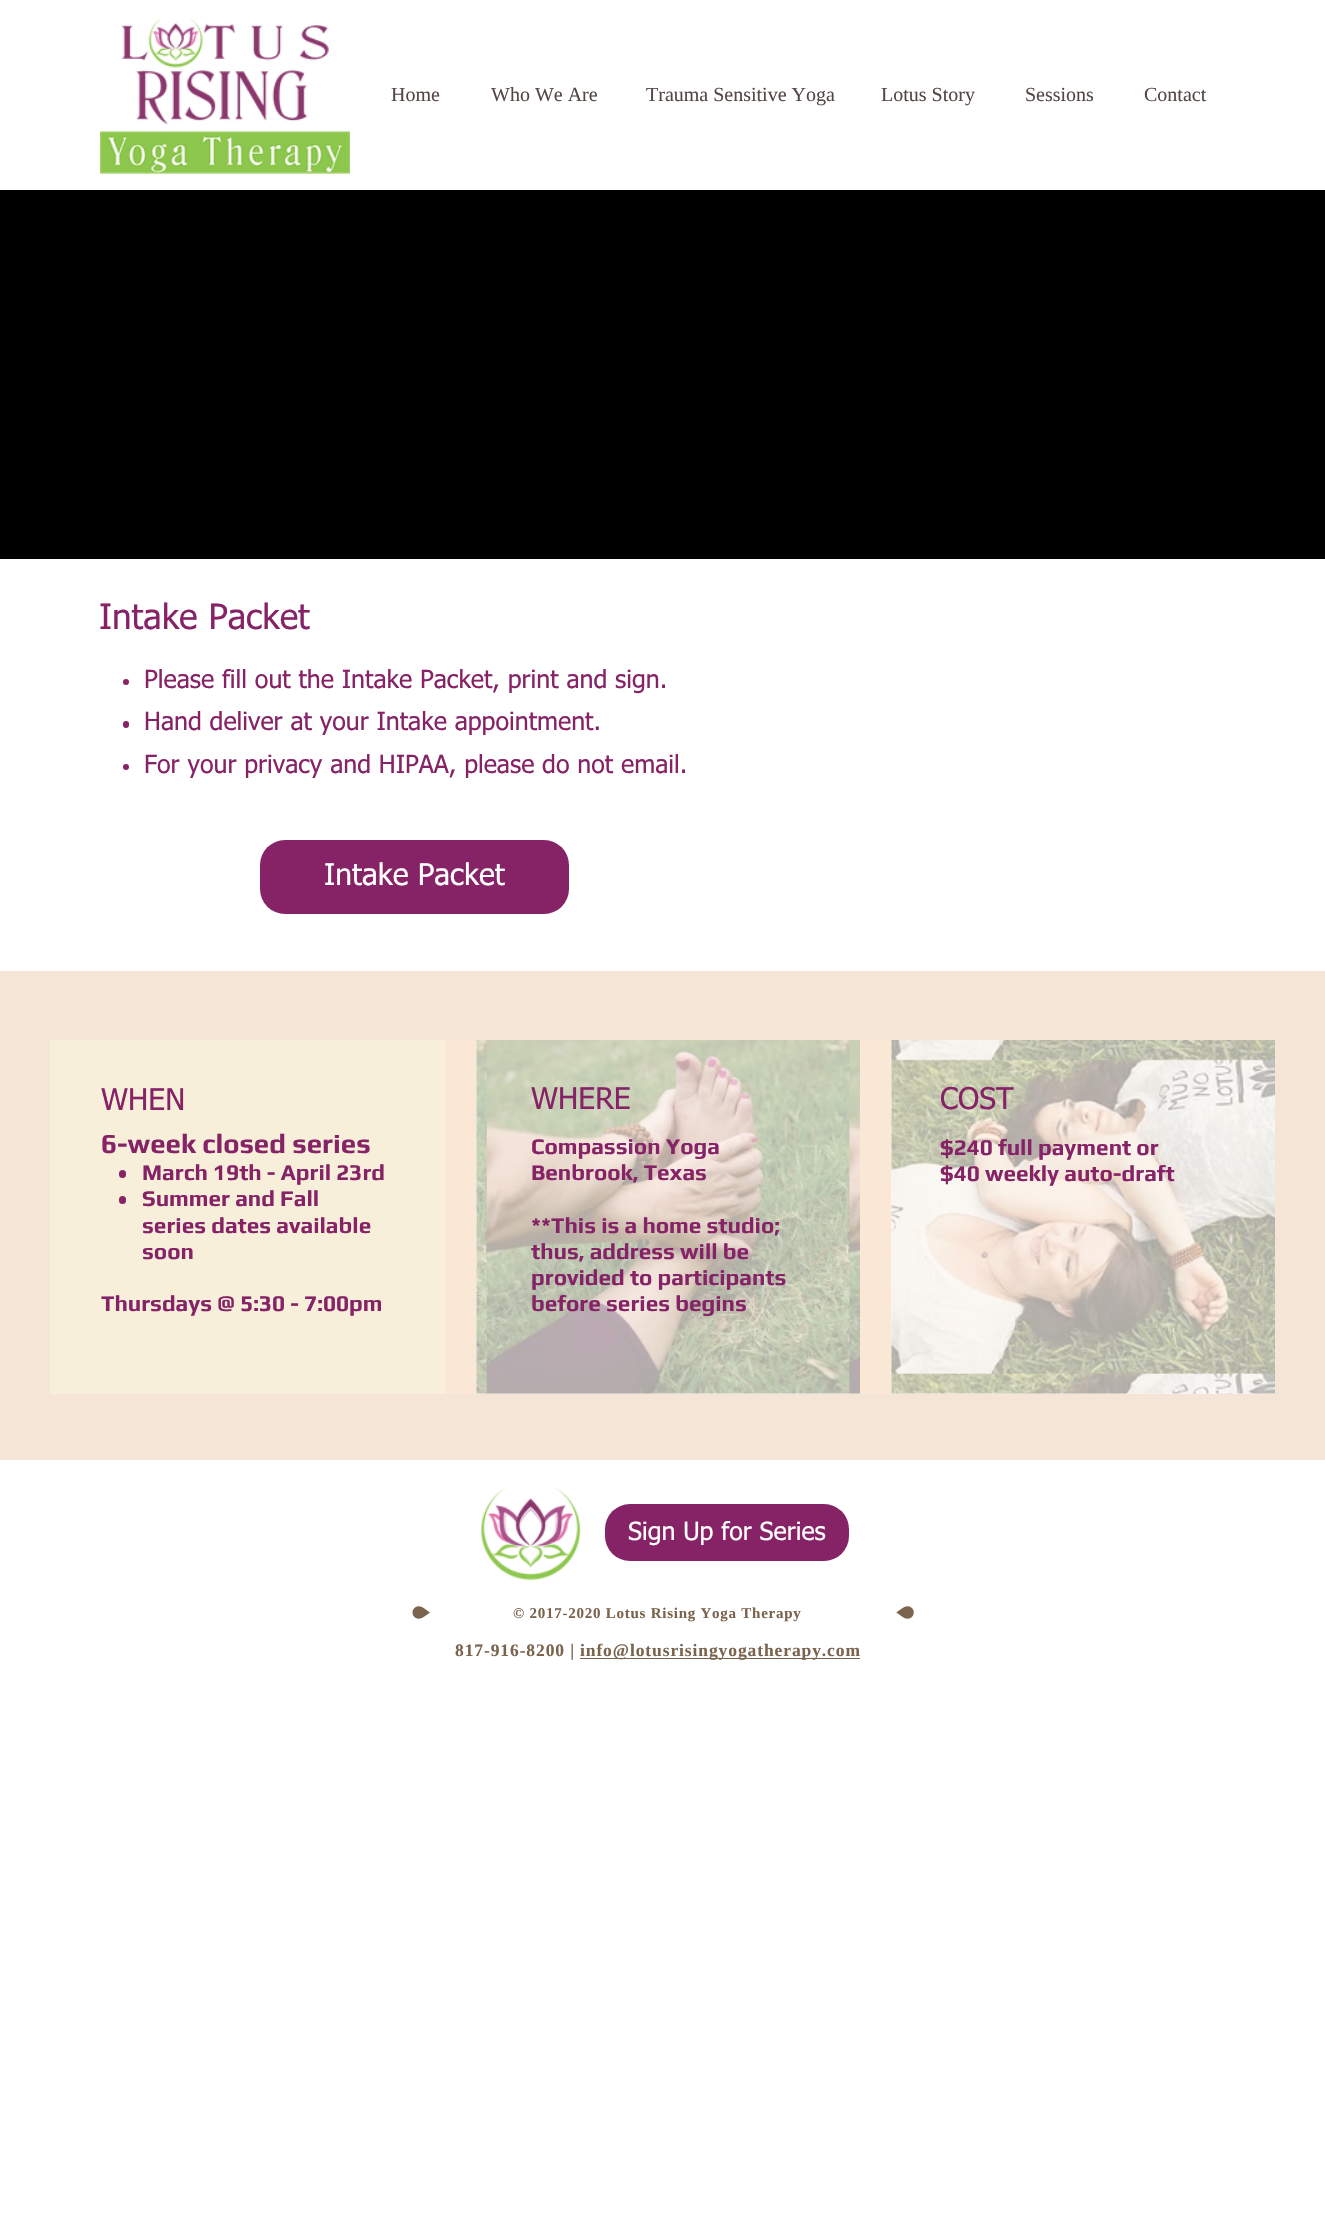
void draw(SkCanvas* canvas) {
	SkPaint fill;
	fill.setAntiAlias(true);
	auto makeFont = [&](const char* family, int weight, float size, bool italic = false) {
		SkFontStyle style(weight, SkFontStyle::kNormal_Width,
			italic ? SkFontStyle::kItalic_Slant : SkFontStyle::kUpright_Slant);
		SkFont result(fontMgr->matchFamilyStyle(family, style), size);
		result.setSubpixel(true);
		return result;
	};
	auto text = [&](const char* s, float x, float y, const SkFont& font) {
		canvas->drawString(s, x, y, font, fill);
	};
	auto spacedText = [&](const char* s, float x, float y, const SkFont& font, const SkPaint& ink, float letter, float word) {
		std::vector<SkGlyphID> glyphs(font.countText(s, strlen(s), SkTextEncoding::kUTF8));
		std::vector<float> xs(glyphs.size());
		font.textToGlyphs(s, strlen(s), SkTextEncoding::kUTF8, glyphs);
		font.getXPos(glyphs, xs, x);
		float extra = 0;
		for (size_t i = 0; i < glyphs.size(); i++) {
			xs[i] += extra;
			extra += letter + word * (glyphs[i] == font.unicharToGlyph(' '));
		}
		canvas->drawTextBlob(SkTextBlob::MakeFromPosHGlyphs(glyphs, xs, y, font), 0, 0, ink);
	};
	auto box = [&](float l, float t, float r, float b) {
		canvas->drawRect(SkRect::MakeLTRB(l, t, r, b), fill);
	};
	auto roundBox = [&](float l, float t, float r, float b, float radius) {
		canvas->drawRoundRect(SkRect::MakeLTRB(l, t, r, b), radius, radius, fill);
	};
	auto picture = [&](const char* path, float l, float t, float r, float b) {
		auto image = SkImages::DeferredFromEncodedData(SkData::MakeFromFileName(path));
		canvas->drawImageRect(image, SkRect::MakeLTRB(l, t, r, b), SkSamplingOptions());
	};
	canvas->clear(0xFFFFFFFF);
	picture("image0.png", 100, 18, 350, 174);
	fill.setColor(0xFF000000);
	box(0, 190, 1325, 559);
	fill.setColor(0xFF862266);
	canvas->drawCircle(126, 682, 3, fill);
	roundBox(123, 721, 129, 728, 3);
	canvas->drawCircle(126, 767, 3, fill);
	roundBox(260, 840, 569, 914, 25);
	fill.setColor(0xFFF4E5D7);
	box(0, 971, 1325, 1460);
	fill.setColor(0xFFFAE7D5);
	box(445, 1040, 891, 1394);
	fill.setColor(0xFFF8EFDB);
	box(50, 1040, 445, 1394);
	fill.setColor(0xFFFEF9F4);
	box(476, 1040, 860, 1394);
	picture("image1.png", 476, 1040, 860, 1394);
	box(891, 1040, 1275, 1394);
	picture("image2.png", 891, 1040, 1275, 1394);
	fill.setColor(0xFF862266);
	roundBox(119, 1170, 126, 1178, 3.5f);
	roundBox(119, 1196, 126, 1204, 3.5f);
	picture("image3.png", 481, 1487, 581, 1581);
	roundBox(605, 1504, 849, 1561, 25);
	picture("image4.png", 412, 1606, 430, 1619);
	fill.setColor(0xFF7A644E);
	box(580, 1658, 860, 1659);
	picture("image5.png", 896, 1606, 914, 1619);
	auto font1 = makeFont("Liberation Serif", 400, 20);
	fill.setColor(0xFF534745);
	text("Home", 391, 101, font1);
	text("Who We Are", 491, 101, font1);
	text("Trauma Sensitive Yoga", 646, 101, font1);
	text("Lotus Story", 881, 101, font1);
	text("Sessions", 1025, 101, font1);
	text("Contact", 1144, 101, font1);
	auto font2 = makeFont("tahoma", 400, 35);
	fill.setColor(0xFF862266);
	text("Intake Packet", 99, 629, font2);
	auto font3 = makeFont("tahoma", 400, 25);
	text("Please fill out the Intake Packet, print and sign.", 144, 688, font3);
	text("Hand deliver at your Intake appointment.", 144, 730, font3);
	text("For your privacy and HIPAA, please do not email.", 144, 773, font3);
	auto font4 = makeFont("tahoma", 400, 30);
	fill.setColor(0xFFFFFFFF);
	text("Intake Packet", 324, 885, font4);
	fill.setColor(0xFF862266);
	text("WHEN", 101, 1110, font4);
	text("WHERE", 531, 1109, font4);
	auto font5 = makeFont("Play", 700, 22.5f);
	text("Compassion Yoga", 531, 1154, font5);
	text("Benbrook, Texas", 531, 1180, font5);
	text("**This is a home studio;", 531, 1233, font5);
	text("thus, address will be", 531, 1259, font5);
	text("provided to participants", 531, 1285, font5);
	text("before series begins", 531, 1311, font5);
	text("COST", 940, 1109, font4);
	text("$240 full payment or", 940, 1155, font5);
	text("$40 weekly auto-draft", 940, 1181, font5);
	auto font6 = makeFont("Play", 700, 27.5f);
	text("6-week closed series", 101, 1153, font6);
	text("March 19th - April 23rd", 142, 1180, font5);
	text("Summer and Fall", 142, 1206, font5);
	text("series dates available", 142, 1233, font5);
	text("soon", 142, 1259, font5);
	text("Thursdays @ 5:30 - 7:00pm", 101, 1311, font5);
	fill.setColor(0xFFFFFFFF);
	text("Sign Up for Series", 628, 1540, font3);
	auto font7 = makeFont("Liberation Serif", 700, 15);
	fill.setColor(0xFF7A644E);
	spacedText("© 2017-2020 Lotus Rising Yoga Therapy", 513, 1618, font7, fill, 0.75f, 0);
	auto font8 = makeFont("Liberation Serif", 700, 17.5f);
	spacedText("817-916-8200 |", 455, 1656, font8, fill, 0.9f, 0);
	spacedText("info@lotusrisingyogatherapy.com", 580, 1656, font8, fill, 0.9f, 0);
}
